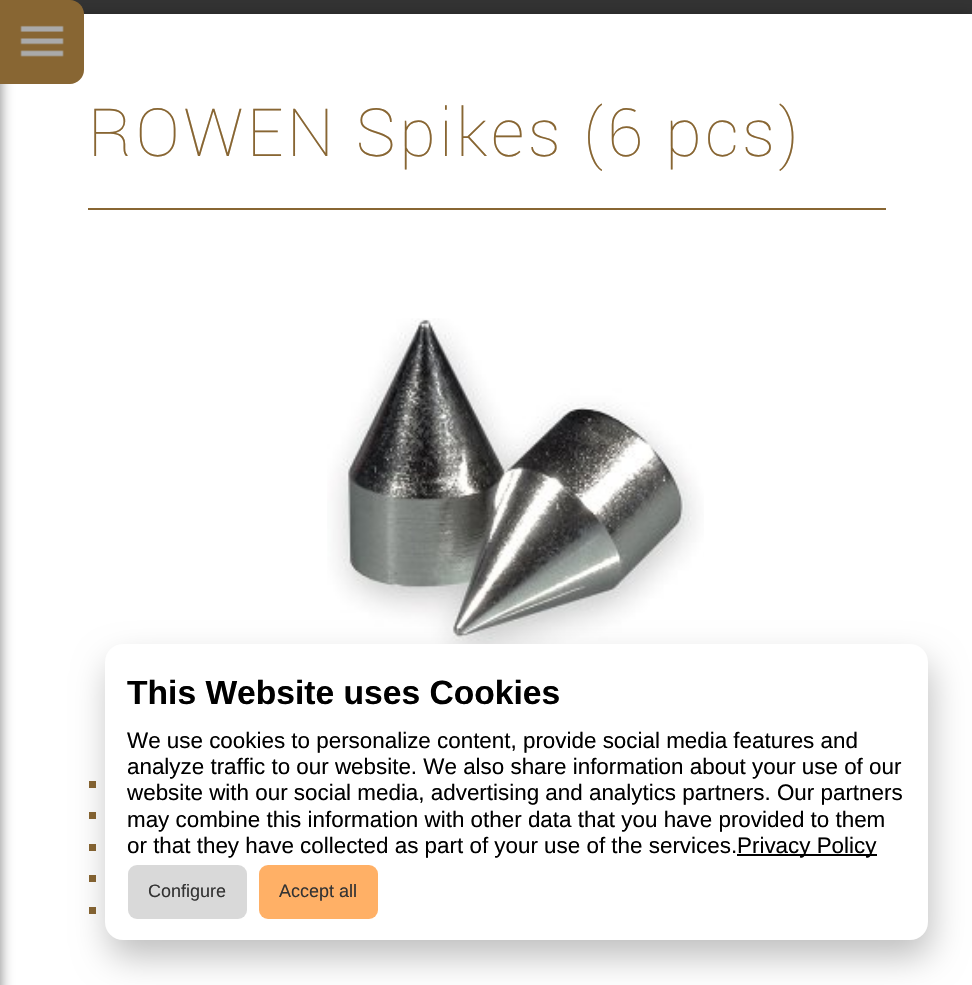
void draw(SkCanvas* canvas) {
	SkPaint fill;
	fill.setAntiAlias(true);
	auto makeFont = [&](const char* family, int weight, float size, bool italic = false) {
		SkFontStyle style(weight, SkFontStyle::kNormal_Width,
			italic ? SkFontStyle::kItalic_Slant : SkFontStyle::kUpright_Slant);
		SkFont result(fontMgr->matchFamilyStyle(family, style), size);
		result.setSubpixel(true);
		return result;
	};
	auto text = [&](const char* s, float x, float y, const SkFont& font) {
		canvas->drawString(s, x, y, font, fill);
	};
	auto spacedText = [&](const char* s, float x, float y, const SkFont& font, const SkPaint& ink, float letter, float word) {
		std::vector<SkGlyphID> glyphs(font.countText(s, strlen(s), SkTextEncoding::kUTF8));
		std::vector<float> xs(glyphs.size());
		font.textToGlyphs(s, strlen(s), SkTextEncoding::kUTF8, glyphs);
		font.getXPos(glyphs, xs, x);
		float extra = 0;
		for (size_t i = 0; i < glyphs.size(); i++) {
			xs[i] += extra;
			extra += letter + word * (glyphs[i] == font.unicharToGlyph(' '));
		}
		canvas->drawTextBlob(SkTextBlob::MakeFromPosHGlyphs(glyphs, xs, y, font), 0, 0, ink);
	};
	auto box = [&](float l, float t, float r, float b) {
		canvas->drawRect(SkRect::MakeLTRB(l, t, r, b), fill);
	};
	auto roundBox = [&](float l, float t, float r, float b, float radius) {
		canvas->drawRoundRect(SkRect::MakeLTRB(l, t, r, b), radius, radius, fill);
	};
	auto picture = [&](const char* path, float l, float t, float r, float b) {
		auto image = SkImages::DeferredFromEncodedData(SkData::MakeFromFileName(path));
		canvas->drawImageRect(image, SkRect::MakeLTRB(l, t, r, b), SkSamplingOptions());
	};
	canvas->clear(0xFF333333);
	fill.setColor(0x80000000);
	fill.setMaskFilter(SkMaskFilter::MakeBlur(kNormal_SkBlurStyle, 7));
	canvas->drawRect(SkRect::MakeLTRB(0, 18, 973, 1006), fill);
	fill.setMaskFilter(nullptr);
	fill.setColor(0xFFFFFFFF);
	box(0, 14, 972, 985);
	fill.setColor(0x80000000);
	fill.setMaskFilter(SkMaskFilter::MakeBlur(kNormal_SkBlurStyle, 7));
	canvas->drawRect(SkRect::MakeLTRB(-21, 0, 0, 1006), fill);
	fill.setMaskFilter(nullptr);
	fill.setColor(0xFF886633);
	canvas->drawPath(SkPathBuilder().moveTo(0, 0).lineTo(70, 0).cubicTo(77.5f, 0, 84, 6.5f, 84, 14).lineTo(84, 70).cubicTo(84, 77.5f, 77.5f, 84, 70, 84).lineTo(0, 84).close().detach(), fill);
	picture("image0.png", 20, 25, 64, 57);
	box(88, 208, 886, 210);
	picture("image1.png", 327, 318, 704, 644);
	box(89, 781, 96, 788);
	box(89, 812, 96, 819);
	box(89, 844, 96, 851);
	box(89, 875, 96, 882);
	box(89, 907, 96, 914);
	fill.setColor(0x40000000);
	fill.setMaskFilter(SkMaskFilter::MakeBlur(kNormal_SkBlurStyle, 17.5f));
	canvas->drawRoundRect(SkRect::MakeLTRB(109, 662, 931, 957), 18, 18, fill);
	fill.setMaskFilter(nullptr);
	fill.setColor(0xFFFFFFFF);
	roundBox(105, 644, 928, 940, 18);
	fill.setColor(0xFF000000);
	box(737, 854, 877, 856);
	fill.setColor(0xFFD9D9D9);
	roundBox(128, 865, 247, 919, 9);
	fill.setColor(0xFFFFB066);
	roundBox(259, 865, 378, 919, 9);
	auto font1 = makeFont("Roboto", 100, 66.5f);
	fill.setColor(0xFF886633);
	spacedText("ROWEN Spikes (6 pcs)", 88, 156, font1, fill, 3.3f, 0);
	auto font2 = makeFont("Liberation Sans", 700, 33.6f);
	fill.setColor(0xFF000000);
	text("This Website uses Cookies", 127, 704, font2);
	auto font3 = makeFont("Liberation Sans", 400, 22.4f);
	text("We use cookies to personalize content, provide social media features and", 127, 748, font3);
	text("analyze traffic to our website. We also share information about your use of our", 127, 774, font3);
	text("website with our social media, advertising and analytics partners. Our partners", 127, 800, font3);
	text("may combine this information with other data that you have provided to them", 127, 827, font3);
	text("or that they have collected as part of your use of the services.", 127, 853, font3);
	text("Privacy Policy", 737, 853, font3);
	auto font4 = makeFont("Liberation Sans", 400, 18);
	fill.setColor(0xFF333333);
	text("Configure", 148, 897, font4);
	text("Accept all", 279, 897, font4);
}
